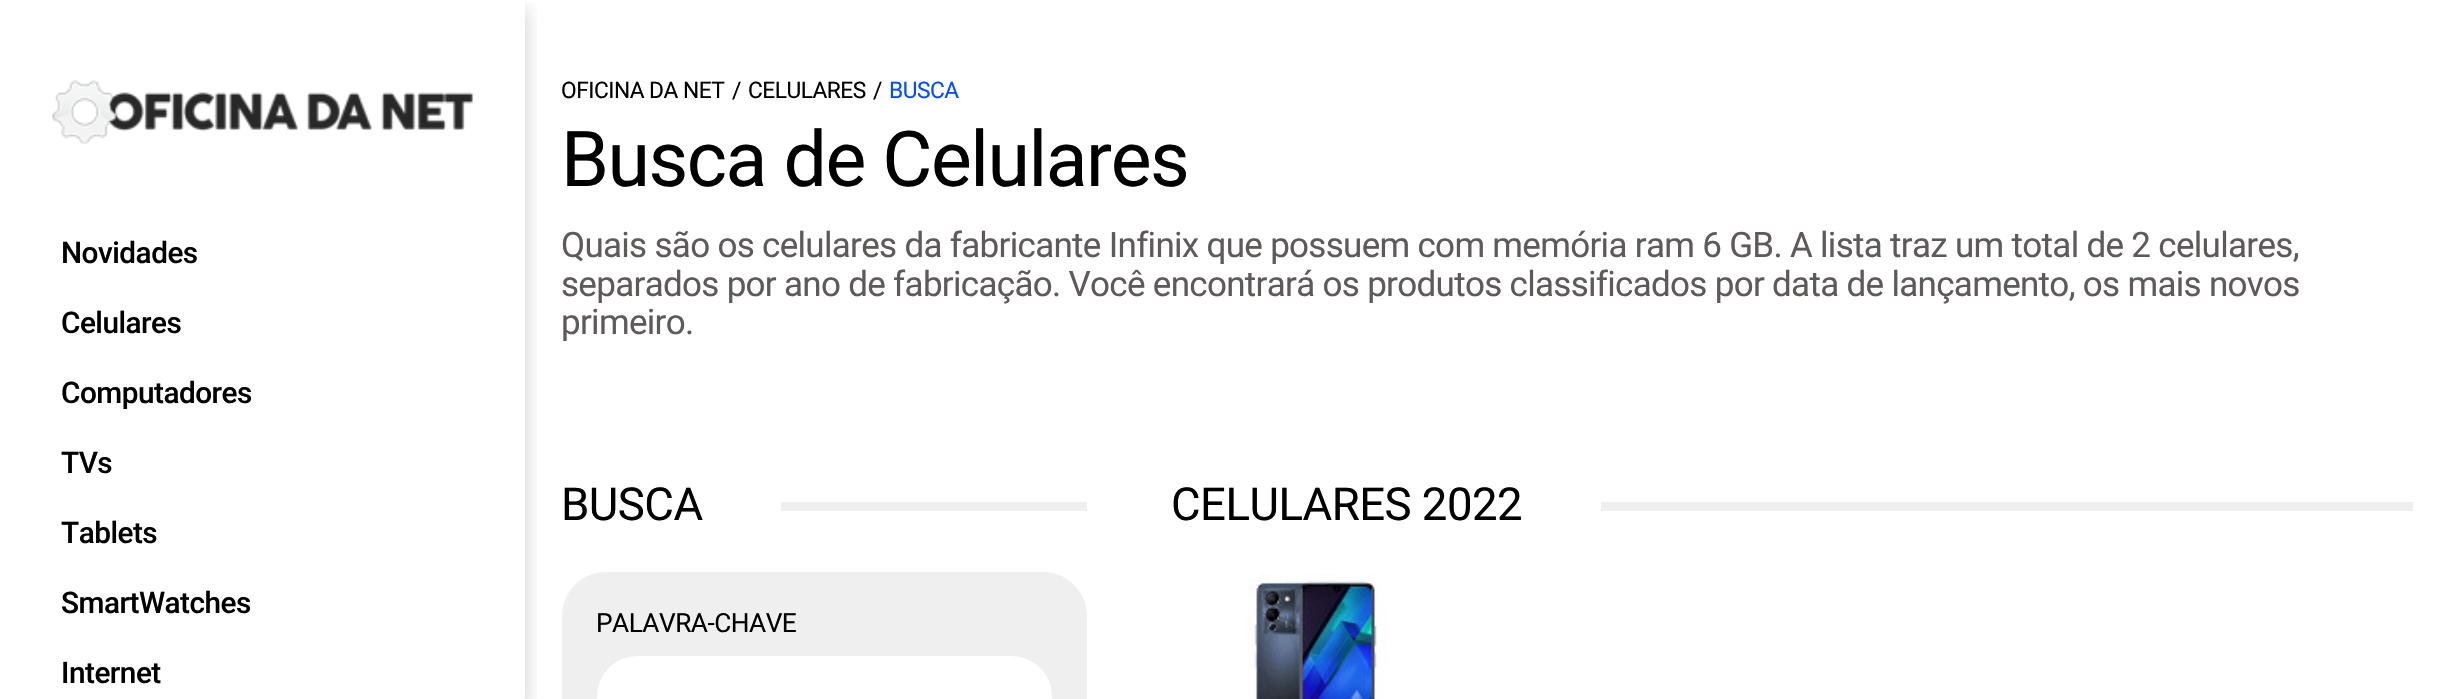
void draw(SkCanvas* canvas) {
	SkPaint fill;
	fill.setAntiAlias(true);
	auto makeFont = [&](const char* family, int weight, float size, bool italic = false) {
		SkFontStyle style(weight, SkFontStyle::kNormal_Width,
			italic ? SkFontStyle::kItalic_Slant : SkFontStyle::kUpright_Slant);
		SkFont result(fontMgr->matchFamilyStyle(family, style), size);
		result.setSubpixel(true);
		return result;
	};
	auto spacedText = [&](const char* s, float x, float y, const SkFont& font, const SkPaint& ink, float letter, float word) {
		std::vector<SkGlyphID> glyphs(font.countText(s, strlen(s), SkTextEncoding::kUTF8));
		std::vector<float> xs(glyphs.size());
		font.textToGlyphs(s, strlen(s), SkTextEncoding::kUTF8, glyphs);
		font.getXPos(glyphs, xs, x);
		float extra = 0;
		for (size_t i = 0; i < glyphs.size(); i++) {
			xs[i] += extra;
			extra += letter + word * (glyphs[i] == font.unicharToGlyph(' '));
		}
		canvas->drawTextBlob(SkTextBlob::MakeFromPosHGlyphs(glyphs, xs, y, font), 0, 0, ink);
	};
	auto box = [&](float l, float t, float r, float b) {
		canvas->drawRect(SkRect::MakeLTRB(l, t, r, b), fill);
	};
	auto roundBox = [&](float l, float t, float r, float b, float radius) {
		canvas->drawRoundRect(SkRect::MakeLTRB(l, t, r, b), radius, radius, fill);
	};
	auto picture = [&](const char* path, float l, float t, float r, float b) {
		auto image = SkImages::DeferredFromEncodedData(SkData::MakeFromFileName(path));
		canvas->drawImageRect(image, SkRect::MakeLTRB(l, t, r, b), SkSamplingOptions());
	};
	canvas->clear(0xFFFFFFFF);
	canvas->save();
	canvas->clipRect(SkRect::MakeLTRB(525, 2, 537, 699));
	fill.setColor(0x33000000);
	fill.setMaskFilter(SkMaskFilter::MakeBlur(kNormal_SkBlurStyle, 9));
	canvas->drawRect(SkRect::MakeLTRB(0, 9, 525, 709), fill);
	fill.setMaskFilter(nullptr);
	canvas->restore();
	picture("image0.png", 52, 80, 473, 144);
	fill.setColor(0xFFEFEFEF);
	box(781, 502, 1087, 511);
	roundBox(562, 572, 1087, 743, 44);
	fill.setColor(0xFFFFFFFF);
	roundBox(597, 656, 1052, 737, 40.5f);
	fill.setColor(0xFFEFEFEF);
	box(1601, 502, 2413, 511);
	picture("image1.png", 1247, 574, 1387, 699);
	auto font1 = makeFont("Roboto", 500, 29.75f);
	fill.setColor(0xFF000000);
	spacedText("Novidades", 61, 263, font1, fill, -0.5f, 0);
	spacedText("Celulares", 61, 333, font1, fill, -0.5f, 0);
	spacedText("Computadores", 61, 403, font1, fill, -0.5f, 0);
	spacedText("TVs", 61, 473, font1, fill, -0.5f, 0);
	spacedText("Tablets", 61, 543, font1, fill, -0.5f, 0);
	spacedText("SmartWatches", 61, 613, font1, fill, -0.5f, 0);
	spacedText("Internet", 61, 683, font1, fill, -0.5f, 0);
	auto font2 = makeFont("Roboto", 400, 22.75f);
	spacedText("OFICINA DA NET", 561, 98, font2, fill, -0.5f, 0);
	spacedText("/", 732, 98, font2, fill, -0.5f, 0);
	spacedText("CELULARES", 748, 98, font2, fill, -0.5f, 0);
	spacedText("/", 873, 98, font2, fill, -0.5f, 0);
	fill.setColor(0xFF004EFF);
	spacedText("BUSCA", 889, 98, font2, fill, -0.5f, 0);
	auto font3 = makeFont("Roboto", 400, 77);
	fill.setColor(0xFF000000);
	spacedText("Busca de Celulares", 561, 186, font3, fill, -1.5f, 0);
	auto font4 = makeFont("Roboto", 400, 35);
	fill.setColor(0xFF5F5A5A);
	spacedText("Quais são os celulares da fabricante Infinix que possuem com memória ram 6 GB. A lista traz um total de 2 celulares,", 561, 257, font4, fill, -0.7f, 0);
	spacedText("separados por ano de fabricação. Você encontrará os produtos classificados por data de lançamento, os mais novos", 561, 296, font4, fill, -0.7f, 0);
	canvas->save();
	canvas->clipRect(SkRect::MakeLTRB(562, 226, 2413, 341));
	spacedText("primeiro.", 561, 334, font4, fill, -0.7f, 0);
	canvas->restore();
	auto font5 = makeFont("Roboto", 400, 45.5f);
	fill.setColor(0xFF000000);
	spacedText("BUSCA", 561, 520, font5, fill, -0.5f, 0);
	auto font6 = makeFont("Roboto", 400, 26.25f);
	spacedText("PALAVRA-CHAVE", 596, 632, font6, fill, -0.5f, 0);
	spacedText("CELULARES 2022", 1171, 520, font5, fill, -0.5f, 0);
}
